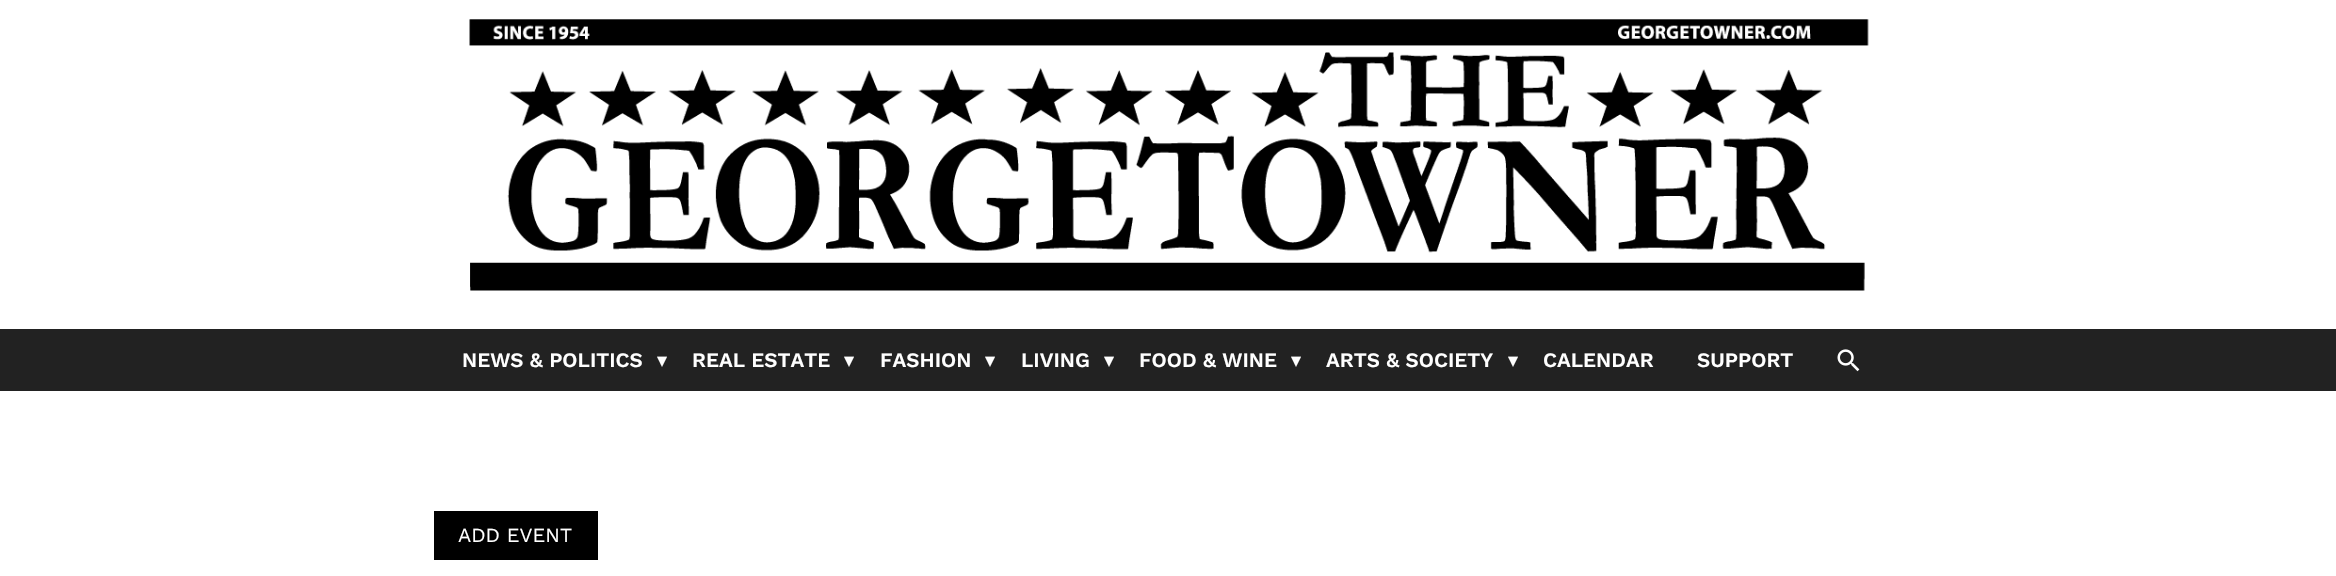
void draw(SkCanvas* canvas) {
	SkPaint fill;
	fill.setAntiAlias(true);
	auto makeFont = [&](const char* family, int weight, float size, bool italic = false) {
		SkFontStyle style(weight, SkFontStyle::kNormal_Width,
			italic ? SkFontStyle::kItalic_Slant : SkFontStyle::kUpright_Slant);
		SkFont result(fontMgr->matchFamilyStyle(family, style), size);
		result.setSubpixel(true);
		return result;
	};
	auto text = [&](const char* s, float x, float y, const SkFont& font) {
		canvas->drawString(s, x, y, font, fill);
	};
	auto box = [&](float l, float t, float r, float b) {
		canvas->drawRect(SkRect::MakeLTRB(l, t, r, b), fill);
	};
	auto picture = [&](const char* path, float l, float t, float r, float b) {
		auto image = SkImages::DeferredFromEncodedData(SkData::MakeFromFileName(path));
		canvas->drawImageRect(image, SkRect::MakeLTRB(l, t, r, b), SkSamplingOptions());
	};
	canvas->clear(0xFFFFFFFF);
	picture("image0.png", 469, 19, 1869, 291);
	fill.setColor(0xFF222222);
	box(0, 329, 2336, 391);
	picture("image1.png", 1837, 349, 1860, 372);
	fill.setColor(0xFF000000);
	box(434, 511, 598, 560);
	auto font1 = makeFont("Work Sans", 600, 20.5f);
	fill.setColor(0xFFFFFFFF);
	text("NEWS & POLITICS", 462, 367, font1);
	auto font2 = makeFont("DejaVu Sans", 400, 20);
	text("▾", 657, 367, font2);
	text("REAL ESTATE", 692, 367, font1);
	text("▾", 844, 367, font2);
	text("FASHION", 880, 367, font1);
	text("▾", 985, 367, font2);
	text("LIVING", 1021, 367, font1);
	text("▾", 1104, 367, font2);
	text("FOOD & WINE", 1139, 367, font1);
	text("▾", 1291, 367, font2);
	text("ARTS & SOCIETY", 1326, 367, font1);
	text("▾", 1508, 367, font2);
	text("CALENDAR", 1543, 367, font1);
	text("SUPPORT", 1697, 367, font1);
	auto font3 = makeFont("Work Sans", 400, 20);
	text("ADD EVENT", 458, 542, font3);
}
